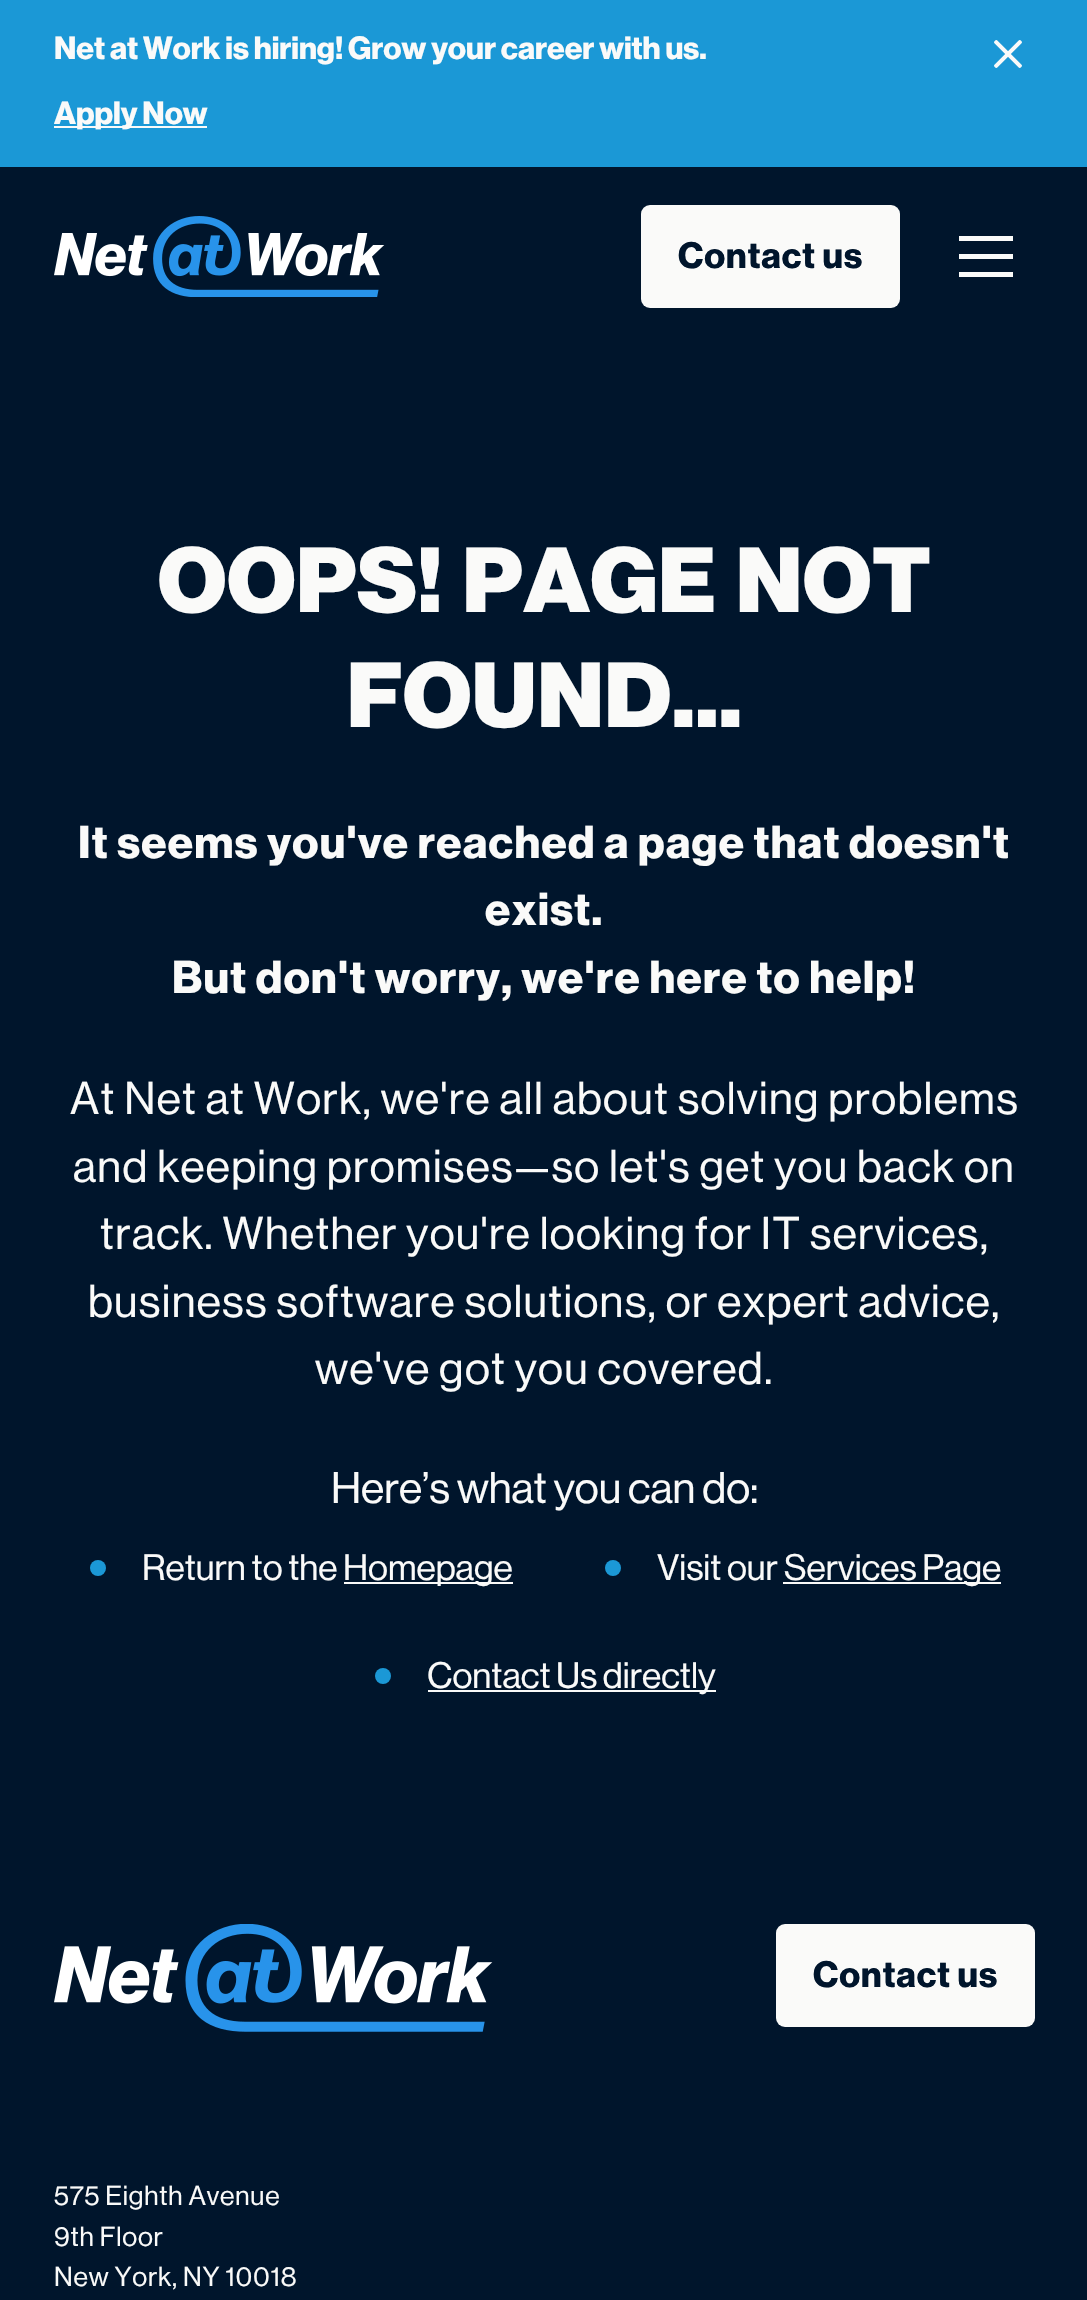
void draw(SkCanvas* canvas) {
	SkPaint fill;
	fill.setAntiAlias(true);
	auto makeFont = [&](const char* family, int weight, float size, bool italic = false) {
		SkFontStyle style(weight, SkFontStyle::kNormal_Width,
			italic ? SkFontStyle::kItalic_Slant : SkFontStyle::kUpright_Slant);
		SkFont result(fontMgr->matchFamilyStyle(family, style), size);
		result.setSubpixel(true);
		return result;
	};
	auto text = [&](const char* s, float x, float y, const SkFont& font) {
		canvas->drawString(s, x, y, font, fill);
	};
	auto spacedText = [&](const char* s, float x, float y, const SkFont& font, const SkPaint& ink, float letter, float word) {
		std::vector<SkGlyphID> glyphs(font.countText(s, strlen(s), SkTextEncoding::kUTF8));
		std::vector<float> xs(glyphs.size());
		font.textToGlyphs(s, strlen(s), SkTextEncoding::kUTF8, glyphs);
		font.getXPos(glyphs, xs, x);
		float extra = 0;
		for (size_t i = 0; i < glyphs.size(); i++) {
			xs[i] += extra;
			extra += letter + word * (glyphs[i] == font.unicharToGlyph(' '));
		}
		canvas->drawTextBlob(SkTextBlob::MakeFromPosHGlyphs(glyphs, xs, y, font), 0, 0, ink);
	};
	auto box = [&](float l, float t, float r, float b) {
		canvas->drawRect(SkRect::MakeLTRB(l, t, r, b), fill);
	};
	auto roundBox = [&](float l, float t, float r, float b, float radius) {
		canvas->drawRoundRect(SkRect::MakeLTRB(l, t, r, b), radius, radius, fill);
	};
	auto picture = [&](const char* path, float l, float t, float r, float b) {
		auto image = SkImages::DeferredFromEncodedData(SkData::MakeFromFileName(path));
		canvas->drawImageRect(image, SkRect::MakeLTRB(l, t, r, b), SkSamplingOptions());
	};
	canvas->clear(0xFF00152C);
	fill.setColor(0xFF1B98D6);
	box(0, 0, 1087, 167);
	fill.setColor(0xFFFAFAF9);
	box(54, 126, 207, 128);
	picture("image0.png", 994, 40, 1022, 68);
	picture("image1.png", 54, 216, 385, 297);
	roundBox(641, 205, 900, 308, 9);
	box(959, 236, 1013, 241);
	box(959, 254, 1013, 259);
	box(959, 272, 1013, 277);
	fill.setColor(0xFF1B98D6);
	canvas->drawCircle(98, 1568, 8, fill);
	fill.setColor(0xFFFAFAF9);
	box(344, 1582, 513, 1584);
	fill.setColor(0xFF1B98D6);
	canvas->drawCircle(613, 1568, 8, fill);
	fill.setColor(0xFFFAFAF9);
	box(783, 1582, 1001, 1584);
	fill.setColor(0xFF1B98D6);
	canvas->drawCircle(383, 1676, 8, fill);
	fill.setColor(0xFFFAFAF9);
	box(428, 1690, 716, 1692);
	picture("image2.png", 54, 1924, 493, 2032);
	roundBox(776, 1924, 1035, 2027, 9);
	auto font1 = makeFont("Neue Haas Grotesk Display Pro", 700, 31.5f);
	text("Net at Work is hiring! Grow your career with us.", 54, 59, font1);
	text("Apply Now", 54, 124, font1);
	auto font2 = makeFont("Neue Haas Grotesk Display Pro", 700, 36);
	fill.setColor(0xFF00152C);
	spacedText("Contact us", 678, 268, font2, fill, 1, 0);
	auto font3 = makeFont("Neue Haas Grotesk Display Pro", 900, 90.25f);
	fill.setColor(0xFFFAFAF9);
	spacedText("OOPS! PAGE NOT", 158, 612, font3, fill, 0.9f, 5);
	spacedText("FOUND...", 347, 727, font3, fill, 0.9f, 0);
	auto font4 = makeFont("Neue Haas Grotesk Display Pro", 700, 45);
	spacedText("It seems you've reached a page that doesn't", 78, 858, font4, fill, 1.35f, 0);
	spacedText("exist.", 485, 925, font4, fill, 1.35f, 0);
	spacedText("But don't worry, we're here to help!", 172, 993, font4, fill, 1.35f, 0);
	auto font5 = makeFont("Neue Haas Grotesk Display Pro", 400, 45);
	spacedText("At Net at Work, we're all about solving problems", 70, 1114, font5, fill, 1.35f, 0);
	spacedText("and keeping promises—so let's get you back on", 73, 1182, font5, fill, 1.35f, 0);
	spacedText("track. Whether you're looking for IT services,", 100, 1249, font5, fill, 1.35f, 0);
	spacedText("business software solutions, or expert advice,", 88, 1317, font5, fill, 1.35f, 0);
	spacedText("we've got you covered.", 315, 1384, font5, fill, 1.35f, 0);
	auto font6 = makeFont("Neue Haas Grotesk Display Pro", 400, 43.25f);
	text("Here’s what you can do:", 331, 1503, font6);
	auto font7 = makeFont("Neue Haas Grotesk Display Pro", 400, 36);
	text("Return to the", 142, 1580, font7);
	text("Homepage", 343, 1580, font7);
	text("Visit our", 657, 1580, font7);
	text("Services Page", 784, 1580, font7);
	text("Contact Us directly", 427, 1688, font7);
	fill.setColor(0xFF00152C);
	spacedText("Contact us", 813, 1987, font2, fill, 1, 0);
	auto font8 = makeFont("Neue Haas Grotesk Display Pro", 400, 27);
	fill.setColor(0xFFFAFAF9);
	spacedText("575 Eighth Avenue", 54, 2205, font8, fill, 0.8f, 0);
	spacedText("9th Floor", 54, 2246, font8, fill, 0.8f, 0);
	spacedText("New York, NY 10018", 54, 2286, font8, fill, 0.8f, 0);
}
